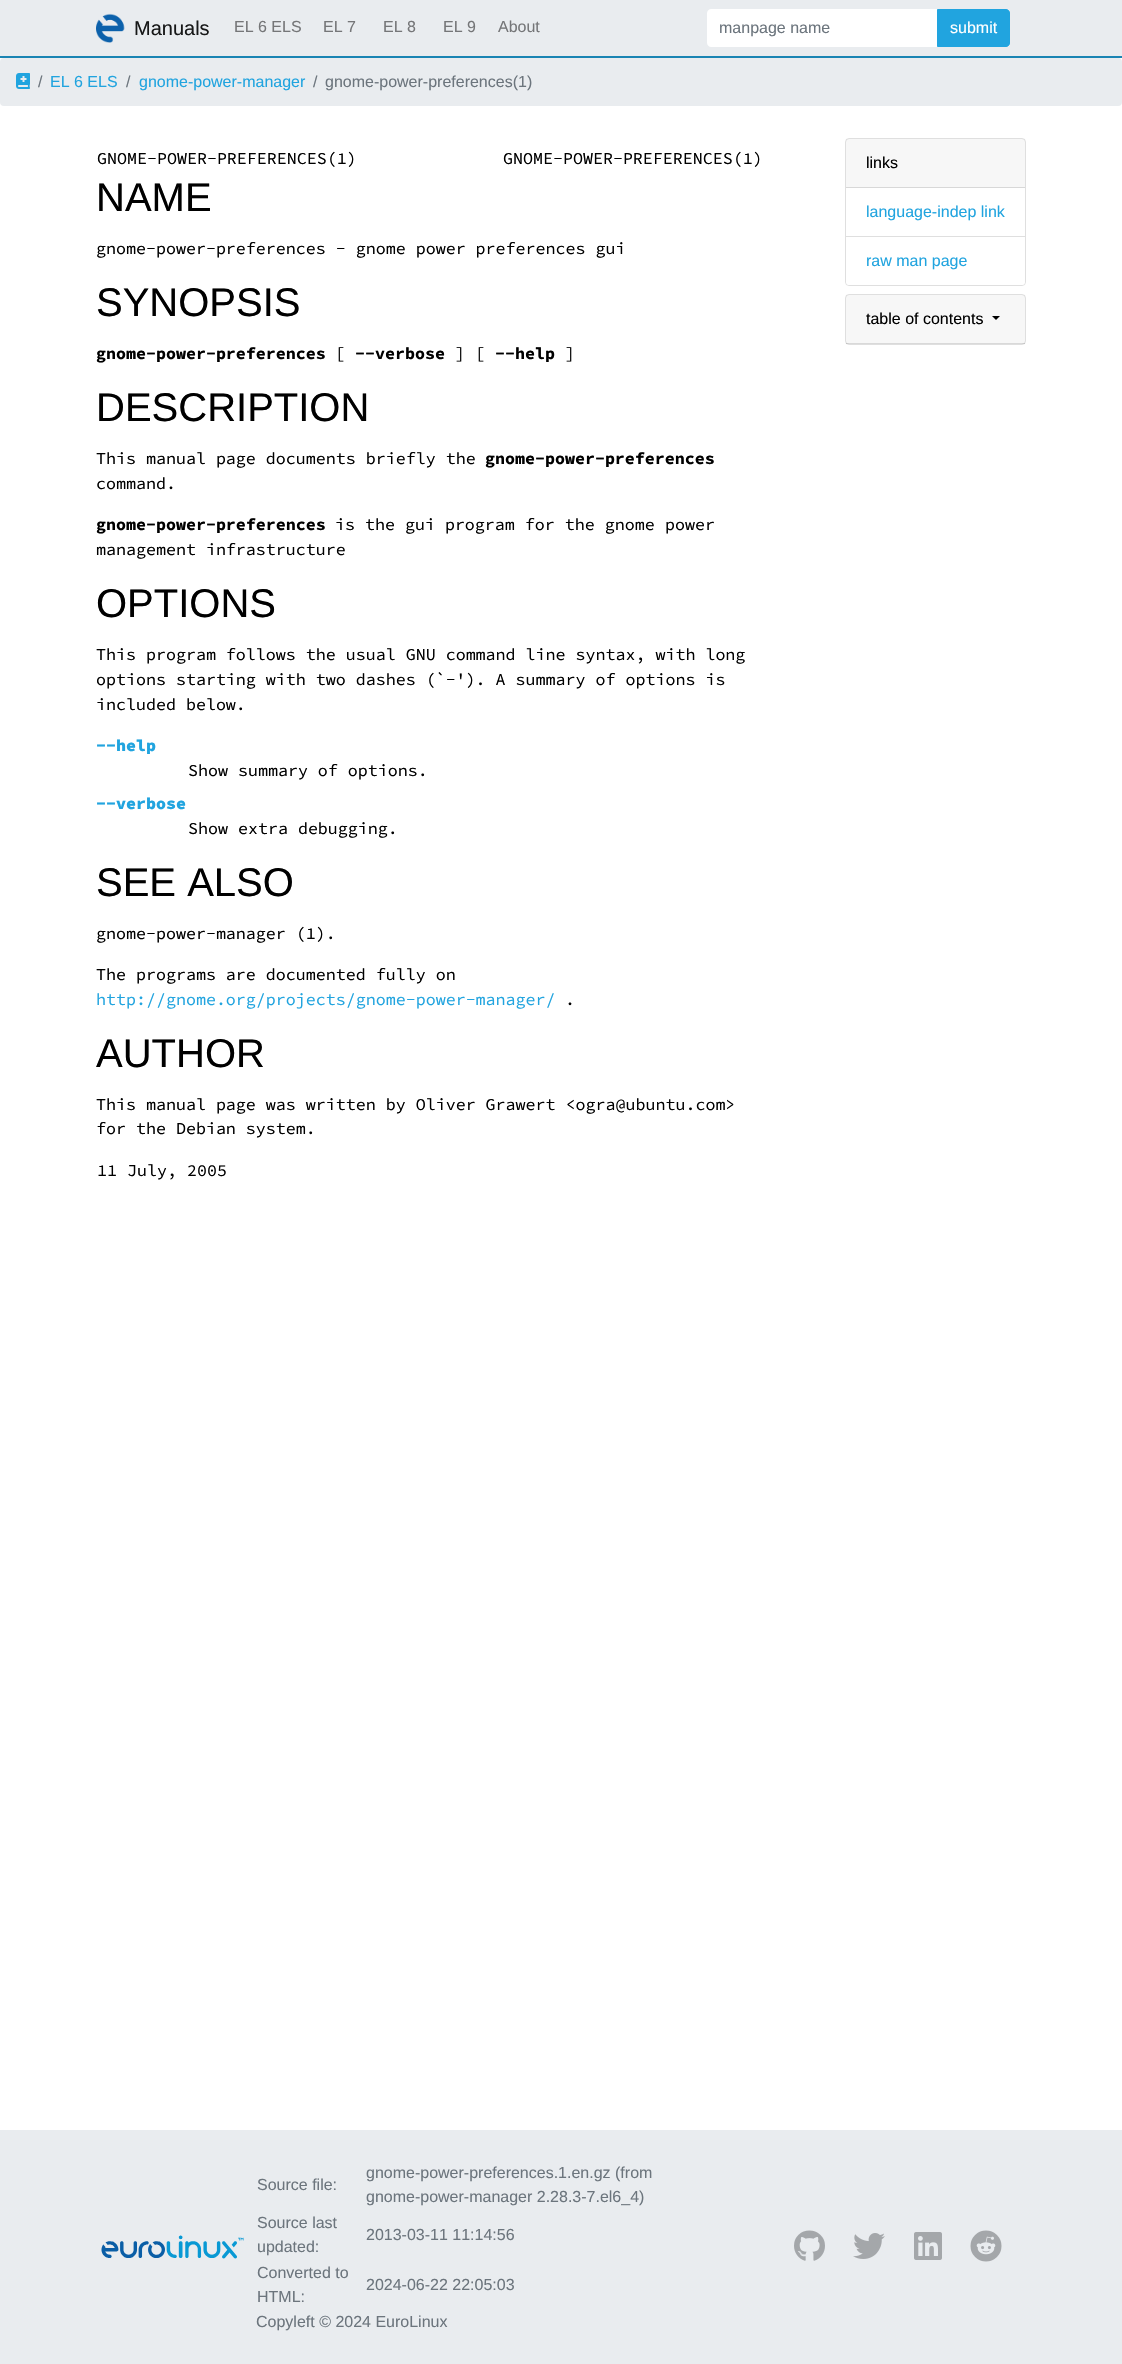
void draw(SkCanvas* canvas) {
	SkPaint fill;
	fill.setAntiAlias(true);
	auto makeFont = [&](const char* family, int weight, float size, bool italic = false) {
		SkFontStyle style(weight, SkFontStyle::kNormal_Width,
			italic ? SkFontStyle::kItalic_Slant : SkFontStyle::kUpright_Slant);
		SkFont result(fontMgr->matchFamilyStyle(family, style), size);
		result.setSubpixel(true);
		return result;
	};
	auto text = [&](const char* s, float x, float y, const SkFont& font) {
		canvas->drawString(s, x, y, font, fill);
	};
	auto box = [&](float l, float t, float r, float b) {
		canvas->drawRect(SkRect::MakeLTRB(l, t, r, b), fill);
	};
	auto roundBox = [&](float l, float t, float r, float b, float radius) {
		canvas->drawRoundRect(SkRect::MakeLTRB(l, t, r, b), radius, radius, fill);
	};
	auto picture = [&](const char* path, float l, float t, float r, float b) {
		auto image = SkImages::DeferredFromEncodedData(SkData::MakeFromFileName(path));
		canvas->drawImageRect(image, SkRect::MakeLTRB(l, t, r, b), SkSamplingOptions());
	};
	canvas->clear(0xFFFFFFFF);
	fill.setColor(0xFFE9ECEF);
	box(0, 0, 1122, 56);
	fill.setColor(0xFF1A84B3);
	box(0, 56, 1122, 58);
	picture("image0.png", 96, 13, 125, 43);
	fill.setColor(0xFFFFFFFF);
	canvas->drawPath(SkPathBuilder().moveTo(711, 9).lineTo(938, 9).lineTo(938, 47).lineTo(711, 47).cubicTo(709, 47, 707, 45, 707, 43).lineTo(707, 13).cubicTo(707, 11, 709, 9, 711, 9).close().detach(), fill);
	fill.setColor(0xFF21A4DF);
	canvas->drawPath(SkPathBuilder().moveTo(937.5f, 9.5f).lineTo(1006, 9.5f).cubicTo(1008, 9.5f, 1009.5f, 11, 1009.5f, 13).lineTo(1009.5f, 43).cubicTo(1009.5f, 45, 1008, 46.5f, 1006, 46.5f).lineTo(937.5f, 46.5f).close().detach(), fill);
	fill.setStyle(SkPaint::kStroke_Style);
	fill.setStrokeWidth(1);
	canvas->drawPath(SkPathBuilder().moveTo(937.5f, 9.5f).lineTo(1006, 9.5f).cubicTo(1008, 9.5f, 1009.5f, 11, 1009.5f, 13).lineTo(1009.5f, 43).cubicTo(1009.5f, 45, 1008, 46.5f, 1006, 46.5f).lineTo(937.5f, 46.5f).close().detach(), fill);
	fill.setStyle(SkPaint::kFill_Style);
	fill.setColor(0xFFE9ECEF);
	roundBox(0, 58, 1122, 106, 4);
	picture("image1.png", 16, 73, 30, 89);
	fill.setStyle(SkPaint::kStroke_Style);
	fill.setColor(0xFFDFDFDF);
	canvas->drawRoundRect(SkRect::MakeLTRB(845.5f, 138.5f, 1025.5f, 285.5f), 3.5f, 3.5f, fill);
	fill.setStyle(SkPaint::kFill_Style);
	fill.setColor(0x08000000);
	box(846, 139, 1025, 187);
	fill.setColor(0xFFD8D8D8);
	box(846, 187, 1025, 188);
	fill.setColor(0xFFDFDFDF);
	box(846, 236, 1025, 237);
	fill.setColor(0xFFFFFFFF);
	canvas->drawPath(SkPathBuilder().moveTo(846, 237).lineTo(1025, 237).lineTo(1025, 282).cubicTo(1025, 283.5f, 1023.5f, 285, 1022, 285).lineTo(849, 285).cubicTo(847.5f, 285, 846, 283.5f, 846, 282).close().detach(), fill);
	fill.setStyle(SkPaint::kStroke_Style);
	fill.setColor(0xFFDFDFDF);
	canvas->drawRoundRect(SkRect::MakeLTRB(845.5f, 294.5f, 1025.5f, 344.5f), 3.5f, 3.5f, fill);
	fill.setStyle(SkPaint::kFill_Style);
	fill.setColor(0x08000000);
	box(846, 295, 1025, 344);
	fill.setColor(0x1F000000);
	box(846, 343, 1025, 344);
	fill.setColor(0xFF000000);
	canvas->drawPath(SkPathBuilder().moveTo(992, 316).lineTo(1000, 316).lineTo(996, 320).close().detach(), fill);
	fill.setColor(0xFFE9ECEF);
	box(0, 2130, 1122, 2364);
	picture("image2.png", 101, 2235, 244, 2259);
	picture("image3.png", 794, 2230, 825, 2261);
	picture("image4.png", 853, 2233, 885, 2259);
	picture("image5.png", 914, 2232, 942, 2260);
	picture("image6.png", 970, 2230, 1002, 2262);
	auto font1 = makeFont("Liberation Sans", 400, 20);
	fill.setColor(0xFF171818);
	text("Manuals", 134, 35, font1);
	auto font2 = makeFont("Liberation Sans", 400, 16);
	fill.setColor(0xFF757678);
	text("EL 6 ELS", 234, 32, font2);
	text("EL 7", 323, 32, font2);
	text("EL 8", 383, 32, font2);
	text("EL 9", 443, 32, font2);
	text("About", 498, 32, font2);
	fill.setColor(0xFF6C757D);
	text("manpage name", 719, 33, font2);
	fill.setColor(0xFFFFFFFF);
	text("submit", 950, 33, font2);
	fill.setColor(0xFF6C757D);
	text("/", 38, 87, font2);
	fill.setColor(0xFF21A4DF);
	text("EL 6 ELS", 50, 87, font2);
	fill.setColor(0xFF6C757D);
	text("/", 126, 87, font2);
	fill.setColor(0xFF21A4DF);
	text("gnome-power-manager", 139, 87, font2);
	fill.setColor(0xFF6C757D);
	text("/", 313, 87, font2);
	text("gnome-power-preferences(1)", 325, 87, font2);
	auto font3 = makeFont("Source Code Pro", 400, 16.65f);
	fill.setColor(0xFF000000);
	text("GNOME-POWER-PREFERENCES(1)", 97, 164, font3);
	text("GNOME-POWER-PREFERENCES(1)", 503, 164, font3);
	auto font4 = makeFont("Liberation Sans", 400, 40);
	text("NAME", 96, 211, font4);
	text("gnome-power-preferences - gnome power preferences gui", 96, 254, font3);
	text("SYNOPSIS", 96, 316, font4);
	auto font5 = makeFont("Source Code Pro", 700, 16.65f);
	text("gnome-power-preferences", 96, 359, font5);
	text("[", 335, 359, font3);
	text("--verbose", 355, 359, font5);
	text("] [", 455, 359, font3);
	text("--help", 495, 359, font5);
	text("]", 565, 359, font3);
	text("DESCRIPTION", 96, 421, font4);
	text("This manual page documents briefly the", 96, 464, font3);
	text("gnome-power-preferences", 485, 464, font5);
	text("command.", 96, 489, font3);
	text("gnome-power-preferences", 96, 530, font5);
	text("is the gui program for the gnome", 335, 530, font3);
	text("power", 665, 530, font3);
	text("management infrastructure", 96, 555, font3);
	text("OPTIONS", 96, 617, font4);
	text("This program follows the usual GNU command line syntax, with long", 96, 660, font3);
	text("options starting with two dashes (`-'). A summary of options is", 96, 685, font3);
	text("included below.", 96, 710, font3);
	auto font6 = makeFont("Source Code Pro", 900, 16.65f);
	fill.setColor(0xFF21A4DF);
	text("--help", 96, 751, font6);
	fill.setColor(0xFF000000);
	text("Show summary of options.", 188, 776, font3);
	fill.setColor(0xFF21A4DF);
	text("--verbose", 96, 809, font6);
	fill.setColor(0xFF000000);
	text("Show extra debugging.", 188, 834, font3);
	text("SEE ALSO", 96, 896, font4);
	text("gnome-power-manager (1).", 96, 939, font3);
	text("The programs are documented fully on", 96, 980, font3);
	fill.setColor(0xFF21A4DF);
	text("http://gnome.org/projects/gnome-power-manager/", 96, 1005, font3);
	fill.setColor(0xFF000000);
	text(".", 565, 1005, font3);
	text("AUTHOR", 96, 1067, font4);
	text("This manual page was written by Oliver Grawert <ogra@ubuntu.com>", 96, 1110, font3);
	text("for the Debian system.", 96, 1134, font3);
	text("11 July, 2005", 97, 1176, font3);
	text("links", 866, 168, font2);
	fill.setColor(0xFF21A4DF);
	text("language-indep link", 866, 217, font2);
	text("raw man page", 866, 266, font2);
	fill.setColor(0xFF000000);
	text("table of contents", 866, 324, font2);
	fill.setColor(0xFF6C757D);
	text("Source file:", 257, 2190, font2);
	text("gnome-power-preferences.1.en.gz (from", 366, 2178, font2);
	text("gnome-power-manager 2.28.3-7.el6_4)", 366, 2202, font2);
	text("Source last", 257, 2228, font2);
	text("updated:", 257, 2252, font2);
	text("2013-03-11 11:14:56", 366, 2240, font2);
	text("Converted to", 257, 2278, font2);
	text("HTML:", 257, 2302, font2);
	text("2024-06-22 22:05:03", 366, 2290, font2);
	text("Copyleft © 2024 EuroLinux", 256, 2327, font2);
}
